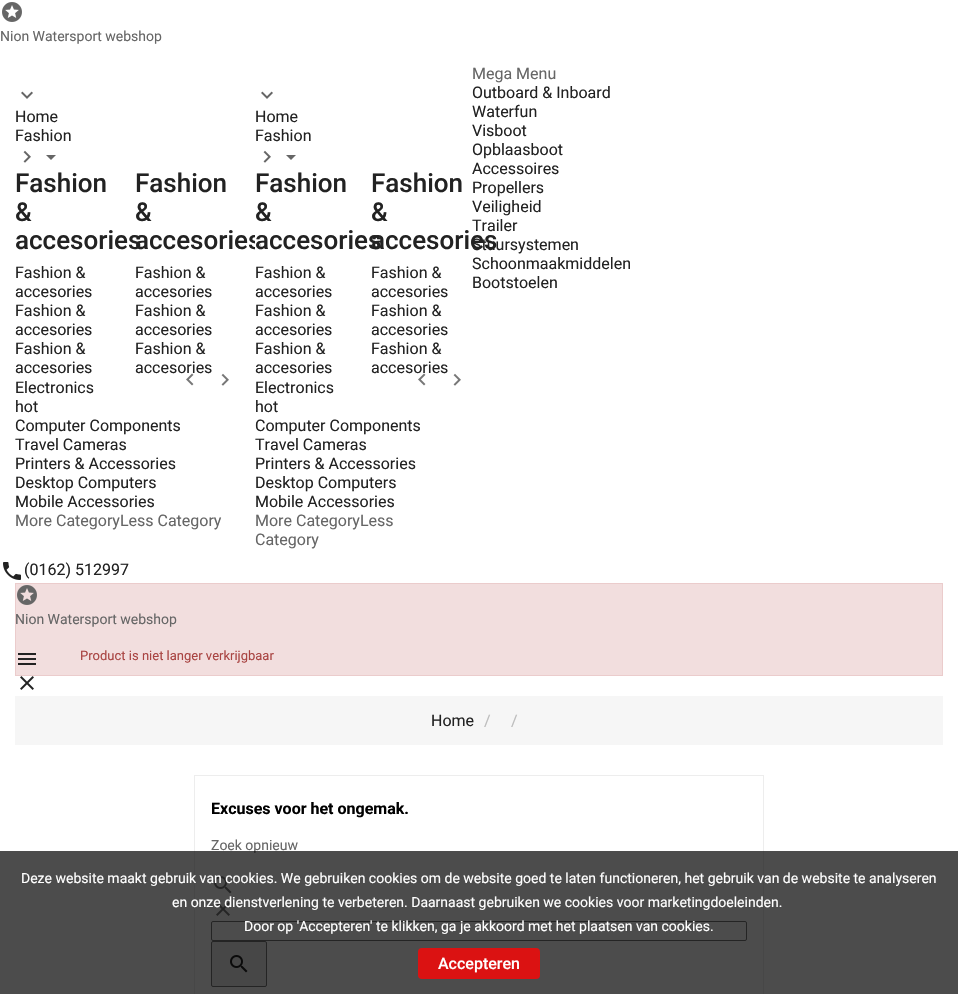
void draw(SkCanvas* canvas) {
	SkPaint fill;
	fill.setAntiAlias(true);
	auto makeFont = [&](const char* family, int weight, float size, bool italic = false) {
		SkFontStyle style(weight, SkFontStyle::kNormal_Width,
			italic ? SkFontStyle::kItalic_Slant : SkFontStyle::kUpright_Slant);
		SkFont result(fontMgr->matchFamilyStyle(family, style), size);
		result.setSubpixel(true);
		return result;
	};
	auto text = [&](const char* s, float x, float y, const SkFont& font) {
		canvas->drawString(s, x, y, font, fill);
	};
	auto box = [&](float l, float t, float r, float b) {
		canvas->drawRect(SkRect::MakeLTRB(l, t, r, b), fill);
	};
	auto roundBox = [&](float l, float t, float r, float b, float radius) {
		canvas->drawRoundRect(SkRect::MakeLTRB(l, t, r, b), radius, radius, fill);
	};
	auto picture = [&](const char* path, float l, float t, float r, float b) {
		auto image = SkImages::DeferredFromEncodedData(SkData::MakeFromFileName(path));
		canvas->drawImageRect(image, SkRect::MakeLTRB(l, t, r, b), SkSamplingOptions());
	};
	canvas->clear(0xFFFFFFFF);
	picture("image0.png", 2, 2, 22, 22);
	picture("image1.png", 261, 91, 273, 99);
	picture("image2.png", 263, 150, 271, 163);
	fill.setColor(0xFF666666);
	canvas->drawPath(SkPathBuilder().moveTo(286, 155).lineTo(296, 155).lineTo(291, 160).close().detach(), fill);
	picture("image4.png", 453, 373, 461, 386);
	picture("image5.png", 3, 562, 21, 580);
	picture("image1.png", 21, 91, 33, 99);
	picture("image2.png", 23, 150, 31, 163);
	canvas->drawPath(SkPathBuilder().moveTo(46, 155).lineTo(56, 155).lineTo(51, 160).close().detach(), fill);
	picture("image4.png", 221, 373, 229, 386);
	fill.setColor(0xFFF2DEDE);
	canvas->drawRect(SkRect::MakeLTRB(15.5f, 583.5f, 942.5f, 675.5f), fill);
	fill.setStyle(SkPaint::kStroke_Style);
	fill.setStrokeWidth(1);
	fill.setColor(0xFFEBCCCC);
	canvas->drawRect(SkRect::MakeLTRB(15.5f, 583.5f, 942.5f, 675.5f), fill);
	picture("image7.png", 17, 585, 37, 605);
	picture("image8.png", 18, 653, 36, 665);
	picture("image9.png", 20, 676, 34, 690);
	fill.setStyle(SkPaint::kFill_Style);
	fill.setColor(0xFFF6F6F6);
	box(15, 696, 943, 745);
	fill.setStyle(SkPaint::kStroke_Style);
	fill.setColor(0xFFEDEDED);
	canvas->drawRect(SkRect::MakeLTRB(194.5f, 775.5f, 763.5f, 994.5f), fill);
	picture("image10.png", 214, 876, 232, 894);
	picture("image11.png", 216, 902, 230, 916);
	fill.setColor(0xFF767676);
	canvas->drawRoundRect(SkRect::MakeLTRB(211.5f, 921.5f, 746.5f, 940.5f), 1.5f, 1.5f, fill);
	fill.setStyle(SkPaint::kFill_Style);
	fill.setColor(0xFFEFEFEF);
	canvas->drawRoundRect(SkRect::MakeLTRB(211.5f, 941.5f, 266.5f, 986.5f), 1.5f, 1.5f, fill);
	fill.setStyle(SkPaint::kStroke_Style);
	fill.setColor(0xFF767676);
	canvas->drawRoundRect(SkRect::MakeLTRB(211.5f, 941.5f, 266.5f, 986.5f), 1.5f, 1.5f, fill);
	picture("image12.png", 230, 955, 248, 973);
	auto font1 = makeFont("Roboto", 400, 14);
	fill.setStyle(SkPaint::kFill_Style);
	fill.setColor(0xFF666666);
	text("Nion Watersport webshop", 0, 41, font1);
	auto font2 = makeFont("Roboto", 400, 16);
	fill.setColor(0xFF222222);
	text("Home", 255, 122, font2);
	text("Fashion", 255, 141, font2);
	auto font3 = makeFont("Roboto", 500, 26);
	text("Fashion", 255, 192, font3);
	text("&", 255, 221, font3);
	text("Fashion &", 255, 278, font2);
	text("accesories", 255, 297, font2);
	text("Fashion &", 255, 316, font2);
	text("accesories", 255, 335, font2);
	text("Fashion &", 255, 354, font2);
	text("accesories", 255, 373, font2);
	text("Fashion", 371, 192, font3);
	text("&", 371, 221, font3);
	text("Fashion &", 371, 278, font2);
	text("accesories", 371, 297, font2);
	text("Fashion &", 371, 316, font2);
	text("accesories", 371, 335, font2);
	text("Fashion &", 371, 354, font2);
	text("accesories", 371, 373, font2);
	picture("image3.png", 418, 373, 426, 386);
	text("Electronics", 255, 393, font2);
	text("hot", 255, 412, font2);
	text("Computer Components", 255, 431, font2);
	text("Travel Cameras", 255, 450, font2);
	text("Printers & Accessories", 255, 469, font2);
	text("Desktop Computers", 255, 488, font2);
	text("Mobile Accessories", 255, 507, font2);
	fill.setColor(0xFF666666);
	text("More CategoryLess", 255, 526, font2);
	text("Category", 255, 545, font2);
	text("Mega Menu", 472, 79, font2);
	fill.setColor(0xFF222222);
	text("Outboard & Inboard", 472, 98, font2);
	text("Waterfun", 472, 117, font2);
	text("Visboot", 472, 136, font2);
	text("Opblaasboot", 472, 155, font2);
	text("Accessoires", 472, 174, font2);
	text("Propellers", 472, 193, font2);
	text("Veiligheid", 472, 212, font2);
	text("Trailer", 472, 231, font2);
	text("Stuursystemen", 472, 250, font2);
	text("Schoonmaakmiddelen", 472, 269, font2);
	text("Bootstoelen", 472, 288, font2);
	text("(0162) 512997", 24, 575, font2);
	text("Home", 15, 122, font2);
	text("Fashion", 15, 141, font2);
	text("Fashion", 15, 192, font3);
	text("&", 15, 221, font3);
	text("accesories", 15, 249, font3);
	text("Fashion &", 15, 278, font2);
	text("accesories", 15, 297, font2);
	text("Fashion &", 15, 316, font2);
	text("accesories", 15, 335, font2);
	text("Fashion &", 15, 354, font2);
	text("accesories", 15, 373, font2);
	text("Fashion", 135, 192, font3);
	text("&", 135, 221, font3);
	text("accesories", 135, 249, font3);
	fill.setColor(0xFFFFFFFF);
	box(255, 235, 260, 250);
	fill.setColor(0xFF222222);
	text("accesories", 255, 249, font3);
	text("accesories", 371, 249, font3);
	text("Fashion &", 135, 278, font2);
	text("accesories", 135, 297, font2);
	text("Fashion &", 135, 316, font2);
	text("accesories", 135, 335, font2);
	text("Fashion &", 135, 354, font2);
	text("accesories", 135, 373, font2);
	picture("image6.png", 186, 373, 194, 386);
	text("Electronics", 15, 393, font2);
	text("hot", 15, 412, font2);
	text("Computer Components", 15, 431, font2);
	text("Travel Cameras", 15, 450, font2);
	text("Printers & Accessories", 15, 469, font2);
	text("Desktop Computers", 15, 488, font2);
	text("Mobile Accessories", 15, 507, font2);
	fill.setColor(0xFF666666);
	text("More CategoryLess Category", 15, 526, font2);
	text("Nion Watersport webshop", 15, 624, font1);
	auto font4 = makeFont("Roboto", 400, 13);
	fill.setColor(0xFFA94442);
	text("Product is niet langer verkrijgbaar", 80, 660, font4);
	fill.setColor(0xFF222222);
	text("Home", 431, 726, font2);
	fill.setColor(0xFFBDBDBD);
	text("/", 484, 726, font2);
	text("/", 511, 726, font2);
	auto font5 = makeFont("Roboto", 700, 16);
	fill.setColor(0xFF000000);
	text("Excuses voor het ongemak.", 211, 814, font5);
	fill.setColor(0xFF666666);
	text("Zoek opnieuw", 211, 850, font1);
	fill.setColor(0xB3000000);
	box(0, 851, 958, 994);
	fill.setColor(0xFFFFFFFF);
	text("Deze website maakt gebruik van cookies. We gebruiken cookies om de website goed te laten functioneren, het gebruik van de website te analyseren", 21, 883, font1);
	text("en onze dienstverlening te verbeteren. Daarnaast gebruiken we cookies voor marketingdoeleinden.", 172, 907, font1);
	text("Door op 'Accepteren' te klikken, ga je akkoord met het plaatsen van cookies.", 244, 931, font1);
	fill.setColor(0xFFDB1212);
	roundBox(418, 948, 540, 979, 4);
	auto font6 = makeFont("Roboto", 500, 16);
	fill.setColor(0xFFFFFFFF);
	text("Accepteren", 438, 969, font6);
}
